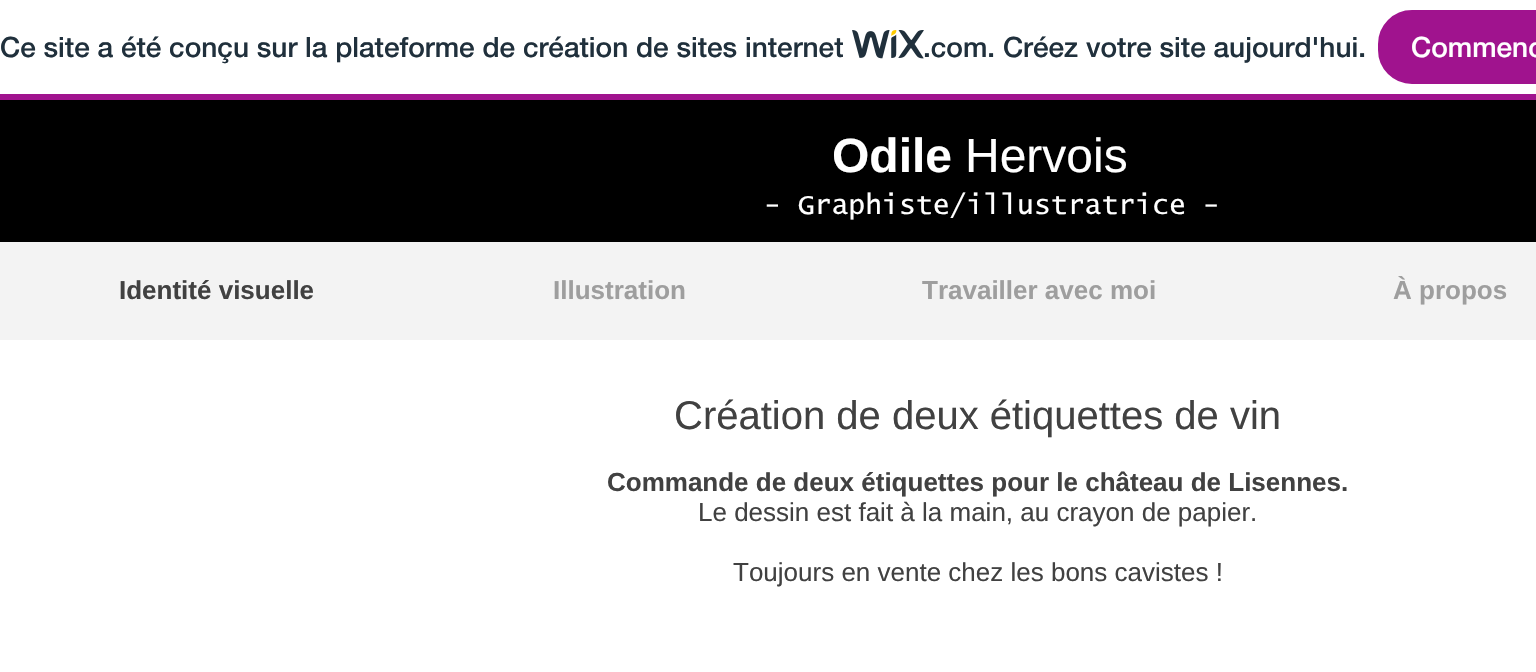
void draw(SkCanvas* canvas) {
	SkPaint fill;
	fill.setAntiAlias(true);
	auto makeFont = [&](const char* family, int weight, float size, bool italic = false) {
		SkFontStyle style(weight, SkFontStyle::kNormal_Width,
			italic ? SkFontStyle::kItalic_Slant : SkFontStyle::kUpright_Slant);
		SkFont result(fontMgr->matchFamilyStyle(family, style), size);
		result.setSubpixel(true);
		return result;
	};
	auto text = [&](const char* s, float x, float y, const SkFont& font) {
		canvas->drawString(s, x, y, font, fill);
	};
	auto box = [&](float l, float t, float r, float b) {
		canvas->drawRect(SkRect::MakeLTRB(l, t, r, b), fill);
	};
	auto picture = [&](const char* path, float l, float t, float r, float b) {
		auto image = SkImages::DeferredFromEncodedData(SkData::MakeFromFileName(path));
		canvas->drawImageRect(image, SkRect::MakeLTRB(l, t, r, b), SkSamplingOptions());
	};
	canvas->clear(0xFFFFFFFF);
	fill.setColor(0xFFA0138E);
	box(0, 94, 1536, 100);
	picture("image0.png", 852, 30, 924, 59);
	canvas->drawRoundRect(SkRect::MakeLTRB(1379, 11, 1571, 83), 33, 33, fill);
	fill.setStyle(SkPaint::kStroke_Style);
	fill.setStrokeWidth(2);
	canvas->drawRoundRect(SkRect::MakeLTRB(1379, 11, 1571, 83), 33, 33, fill);
	fill.setStyle(SkPaint::kFill_Style);
	fill.setColor(0xFF000000);
	box(0, 100, 1536, 242);
	fill.setColor(0xFFF3F3F3);
	box(0, 242, 1536, 340);
	auto font1 = makeFont("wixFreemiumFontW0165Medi", 500, 28);
	fill.setColor(0xFF20303C);
	text("Ce site a été conçu sur la plateforme de création de sites internet", 0, 57, font1);
	text(".com. Créez votre site aujourd'hui.", 923, 57, font1);
	fill.setColor(0xFFFFFFFF);
	text("Commenc", 1411, 57, font1);
	auto font2 = makeFont("Liberation Sans", 700, 48);
	text("Odile", 832, 172, font2);
	auto font3 = makeFont("Liberation Sans", 400, 48);
	text("Hervois", 965, 172, font3);
	auto font4 = makeFont("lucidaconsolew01", 400, 28);
	text("- Graphiste/illustratrice -", 764, 214, font4);
	auto font5 = makeFont("Liberation Sans", 700, 26);
	fill.setColor(0xFF414141);
	text("Identité visuelle", 119, 299, font5);
	fill.setColor(0xFF9E9E9E);
	text("Illustration", 553, 299, font5);
	text("Travailler avec moi", 922, 299, font5);
	text("À propos", 1393, 299, font5);
	auto font6 = makeFont("Liberation Sans", 400, 40);
	fill.setColor(0xFF414141);
	text("Création de deux étiquettes de vin", 674, 429, font6);
	text("Commande de deux étiquettes pour le château de Lisennes.", 607, 491, font5);
	auto font7 = makeFont("Liberation Sans", 400, 26);
	text("Le dessin est fait à la main, au crayon de papier.", 698, 521, font7);
	text("Toujours en vente chez les bons cavistes !", 733, 581, font7);
}
